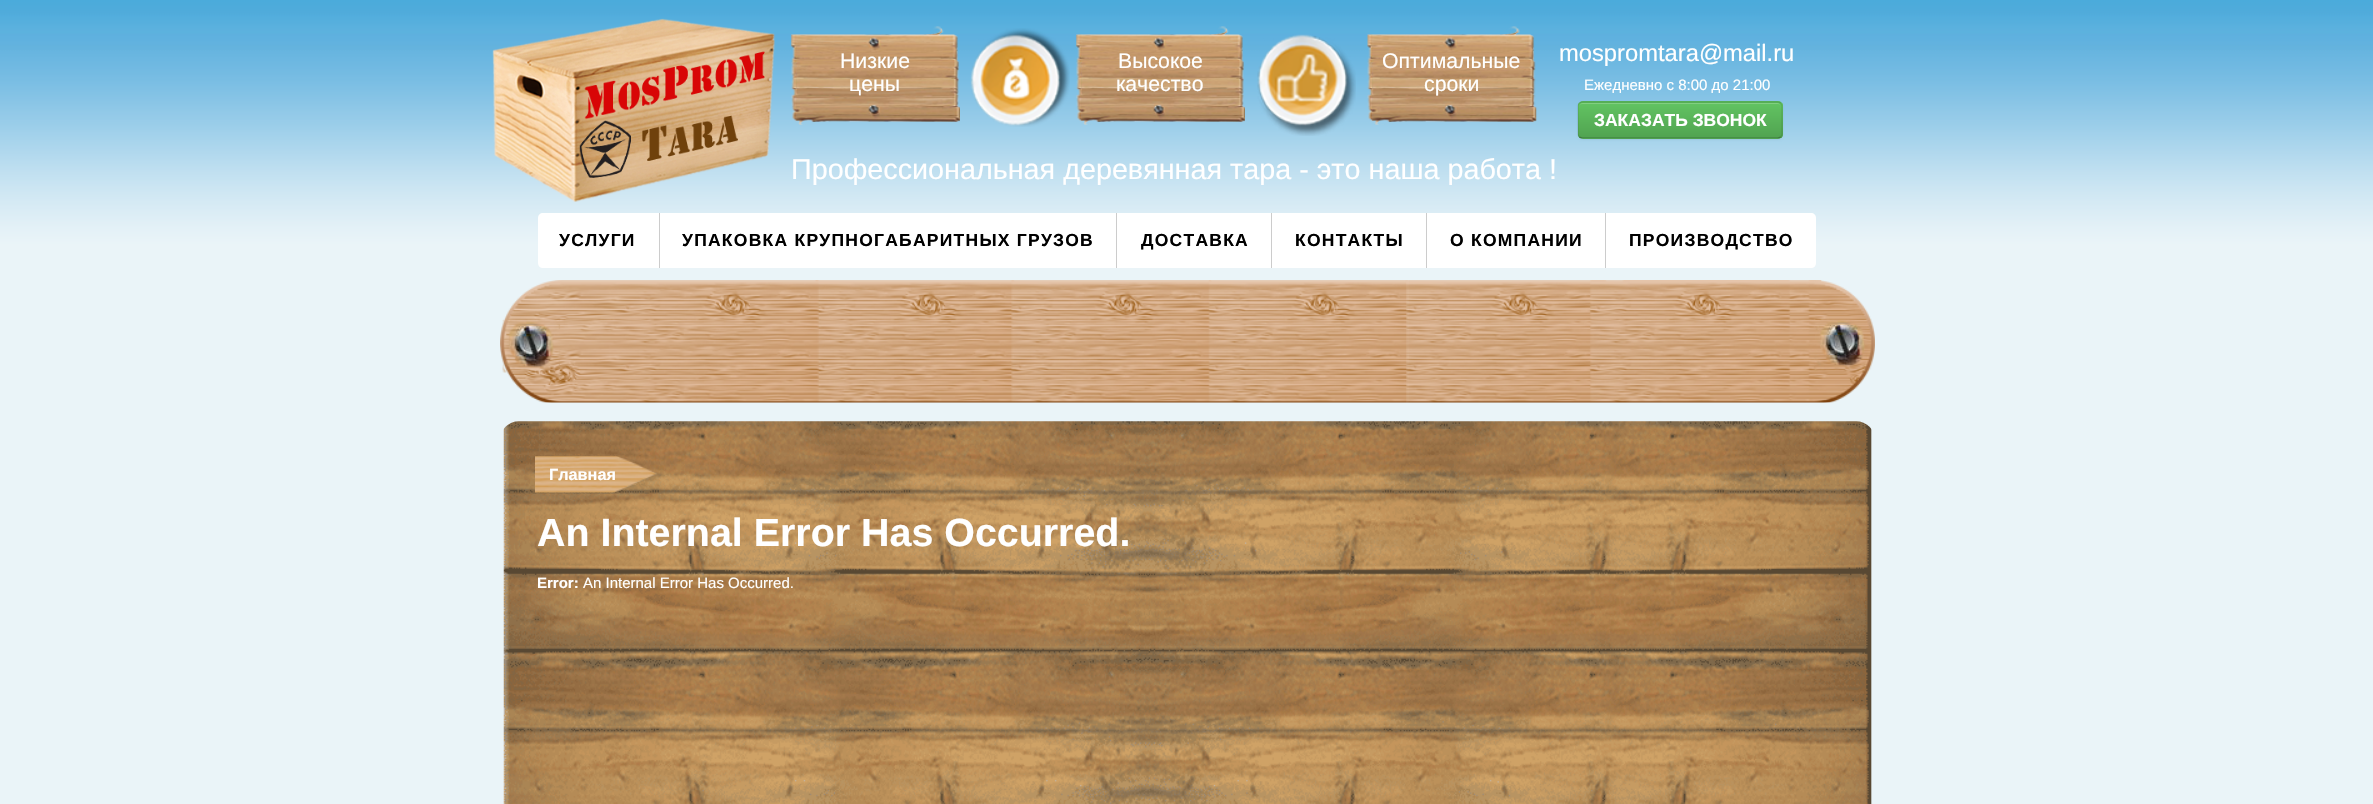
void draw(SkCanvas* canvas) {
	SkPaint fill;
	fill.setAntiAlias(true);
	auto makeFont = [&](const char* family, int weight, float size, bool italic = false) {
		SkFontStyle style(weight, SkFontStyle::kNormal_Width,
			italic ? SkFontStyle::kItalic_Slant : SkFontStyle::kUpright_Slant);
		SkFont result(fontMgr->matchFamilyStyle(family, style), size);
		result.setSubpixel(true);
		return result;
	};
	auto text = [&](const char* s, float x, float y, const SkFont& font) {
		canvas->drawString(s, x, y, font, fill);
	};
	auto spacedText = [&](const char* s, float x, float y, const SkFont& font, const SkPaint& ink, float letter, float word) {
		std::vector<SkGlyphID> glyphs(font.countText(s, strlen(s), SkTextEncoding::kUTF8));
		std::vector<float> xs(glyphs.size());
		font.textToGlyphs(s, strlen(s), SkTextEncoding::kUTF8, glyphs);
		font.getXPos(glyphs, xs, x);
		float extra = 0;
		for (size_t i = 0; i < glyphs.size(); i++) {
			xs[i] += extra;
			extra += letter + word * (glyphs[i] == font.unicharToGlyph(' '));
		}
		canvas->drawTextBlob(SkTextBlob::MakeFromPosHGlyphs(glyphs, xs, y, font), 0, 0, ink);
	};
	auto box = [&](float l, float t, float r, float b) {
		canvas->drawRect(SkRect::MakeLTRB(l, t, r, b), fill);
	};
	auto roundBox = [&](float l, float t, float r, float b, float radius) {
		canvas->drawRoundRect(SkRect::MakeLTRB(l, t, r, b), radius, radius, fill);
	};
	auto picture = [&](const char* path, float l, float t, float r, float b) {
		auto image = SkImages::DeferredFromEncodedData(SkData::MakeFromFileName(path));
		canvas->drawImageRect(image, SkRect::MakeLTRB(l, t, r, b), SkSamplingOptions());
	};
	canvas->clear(0xFFFFFFFF);
	picture("image0.png", 0, 0, 2373, 804);
	picture("image1.png", 492, 18, 775, 202);
	picture("image2.png", 791, 26, 960, 125);
	picture("image3.png", 970, 28, 1070, 127);
	picture("image4.png", 1076, 26, 1245, 125);
	picture("image5.png", 1257, 34, 1356, 136);
	picture("image6.png", 1367, 26, 1537, 125);
	fill.setColor(0x0D000000);
	fill.setMaskFilter(SkMaskFilter::MakeBlur(kNormal_SkBlurStyle, 1));
	canvas->drawRoundRect(SkRect::MakeLTRB(1578, 103, 1783, 140), 5, 5, fill);
	fill.setMaskFilter(nullptr);
	fill.setColor(0xFF5BB75B);
	roundBox(1578, 101, 1783, 139, 5);
	canvas->save();
	canvas->clipPath(SkPathBuilder().moveTo(1583, 101).lineTo(1778, 101).cubicTo(1781, 101, 1783, 103, 1783, 106).lineTo(1783, 134).cubicTo(1783, 137, 1781, 139, 1778, 139).lineTo(1583, 139).cubicTo(1580, 139, 1578, 137, 1578, 134).lineTo(1578, 106).cubicTo(1578, 103, 1580, 101, 1583, 101).close().detach(), true);
	{
		const SkColor colors[] = {0xFF62C462, 0xFF51A351};
		const float stops[] = {0, 1};
		const SkPoint ends[] = {{1680, 102}, {1680, 138}};
		fill.setShader(SkGradientShader::MakeLinear(ends, colors, stops, 2, SkTileMode::kClamp));
		fill.setAlpha(255);
	}
	box(1578, 103, 1783, 138);
	canvas->restore();
	fill.setShader(nullptr);
	fill.setColor(0xFF81CF81);
	canvas->drawPath(SkPathBuilder().moveTo(1582, 104).lineTo(1778, 104).cubicTo(1780, 104, 1781, 105, 1781, 108).lineTo(1781, 107).cubicTo(1781, 105, 1779, 103, 1777, 103).lineTo(1583, 103).cubicTo(1581, 103, 1579, 105, 1579, 107).lineTo(1579, 108).cubicTo(1579, 105, 1580, 104, 1582, 104).close().detach(), fill);
	fill.setStyle(SkPaint::kStroke_Style);
	fill.setStrokeWidth(1.2f);
	fill.setColor(0x40000000);
	canvas->drawPath(SkPathBuilder().moveTo(1780.5f, 137).cubicTo(1780, 137.5f, 1778.5f, 138, 1777.5f, 138).lineTo(1582.5f, 138).cubicTo(1581.5f, 138, 1580, 137.5f, 1579.5f, 137).detach(), fill);
	fill.setColor(0x1A000000);
	canvas->drawPath(SkPathBuilder().moveTo(1579.5f, 137).cubicTo(1578.5f, 136, 1578, 135, 1578, 134).lineTo(1578, 106).cubicTo(1578, 105, 1578.5f, 104, 1579.5f, 103).cubicTo(1580, 102.5f, 1581.5f, 102, 1582.5f, 102).lineTo(1777.5f, 102).cubicTo(1778.5f, 102, 1780, 102.5f, 1780.5f, 103).cubicTo(1781.5f, 104, 1782, 105, 1782, 106).lineTo(1782, 134).cubicTo(1782, 135, 1781.5f, 136, 1780.5f, 137).detach(), fill);
	fill.setStyle(SkPaint::kFill_Style);
	fill.setColor(0xFFFFFFFF);
	canvas->drawPath(SkPathBuilder().moveTo(543, 213).lineTo(660, 213).lineTo(660, 268).lineTo(543, 268).cubicTo(540, 268, 538, 266, 538, 263).lineTo(538, 218).cubicTo(538, 215, 540, 213, 543, 213).close().detach(), fill);
	fill.setColor(0xFFCCCCCC);
	box(659, 213, 660, 268);
	fill.setColor(0xFFFFFFFF);
	box(660, 213, 1605, 268);
	fill.setColor(0xFFCCCCCC);
	box(1116, 213, 1117, 268);
	box(1271, 213, 1272, 268);
	box(1426, 213, 1427, 268);
	box(1605, 213, 1606, 268);
	fill.setColor(0xFFFFFFFF);
	canvas->drawPath(SkPathBuilder().moveTo(1606, 213).lineTo(1811, 213).cubicTo(1814, 213, 1816, 215, 1816, 218).lineTo(1816, 263).cubicTo(1816, 266, 1814, 268, 1811, 268).lineTo(1606, 268).close().detach(), fill);
	picture("image7.png", 500, 280, 1875, 403);
	picture("image8.png", 503, 421, 1872, 804);
	picture("image9.png", 535, 456, 657, 493);
	auto font1 = makeFont("Liberation Sans", 400, 21.25f);
	text("Низкие", 840, 68, font1);
	text("цены", 849, 91, font1);
	text("Высокое", 1118, 68, font1);
	text("качество", 1116, 91, font1);
	text("Оптимальные", 1382, 68, font1);
	text("сроки", 1424, 91, font1);
	auto font2 = makeFont("Liberation Sans", 400, 28.75f);
	text("Профессиональная деревянная тара - это наша работа !", 791, 179, font2);
	auto font3 = makeFont("Liberation Sans", 400, 23.75f);
	text("mospromtara@mail.ru", 1559, 61, font3);
	auto font4 = makeFont("Liberation Sans", 400, 15);
	text("Ежедневно с 8:00 до 21:00", 1584, 90, font4);
	auto font5 = makeFont("Liberation Sans", 700, 17.5f);
	text("ЗАКАЗАТЬ ЗВОНОК", 1594, 126, font5);
	fill.setColor(0xFF000000);
	spacedText("УСЛУГИ", 559, 246, font5, fill, 1.25f, 0);
	spacedText("УПАКОВКА КРУПНОГАБАРИТНЫХ ГРУЗОВ", 682, 246, font5, fill, 1.25f, 0);
	spacedText("ДОСТАВКА", 1141, 246, font5, fill, 1.25f, 0);
	spacedText("КОНТАКТЫ", 1295, 246, font5, fill, 1.25f, 0);
	spacedText("О КОМПАНИИ", 1450, 246, font5, fill, 1.25f, 0);
	spacedText("ПРОИЗВОДСТВО", 1629, 246, font5, fill, 1.25f, 0);
	auto font6 = makeFont("Liberation Sans", 700, 16.25f);
	fill.setColor(0xFFFFFFFF);
	text("Главная", 549, 480, font6);
	auto font7 = makeFont("Liberation Sans", 700, 39.4f);
	text("An Internal Error Has Occurred.", 537, 546, font7);
	auto font8 = makeFont("Liberation Sans", 700, 15);
	text("Error:", 537, 588, font8);
	text("An Internal Error Has Occurred.", 583, 588, font4);
}
